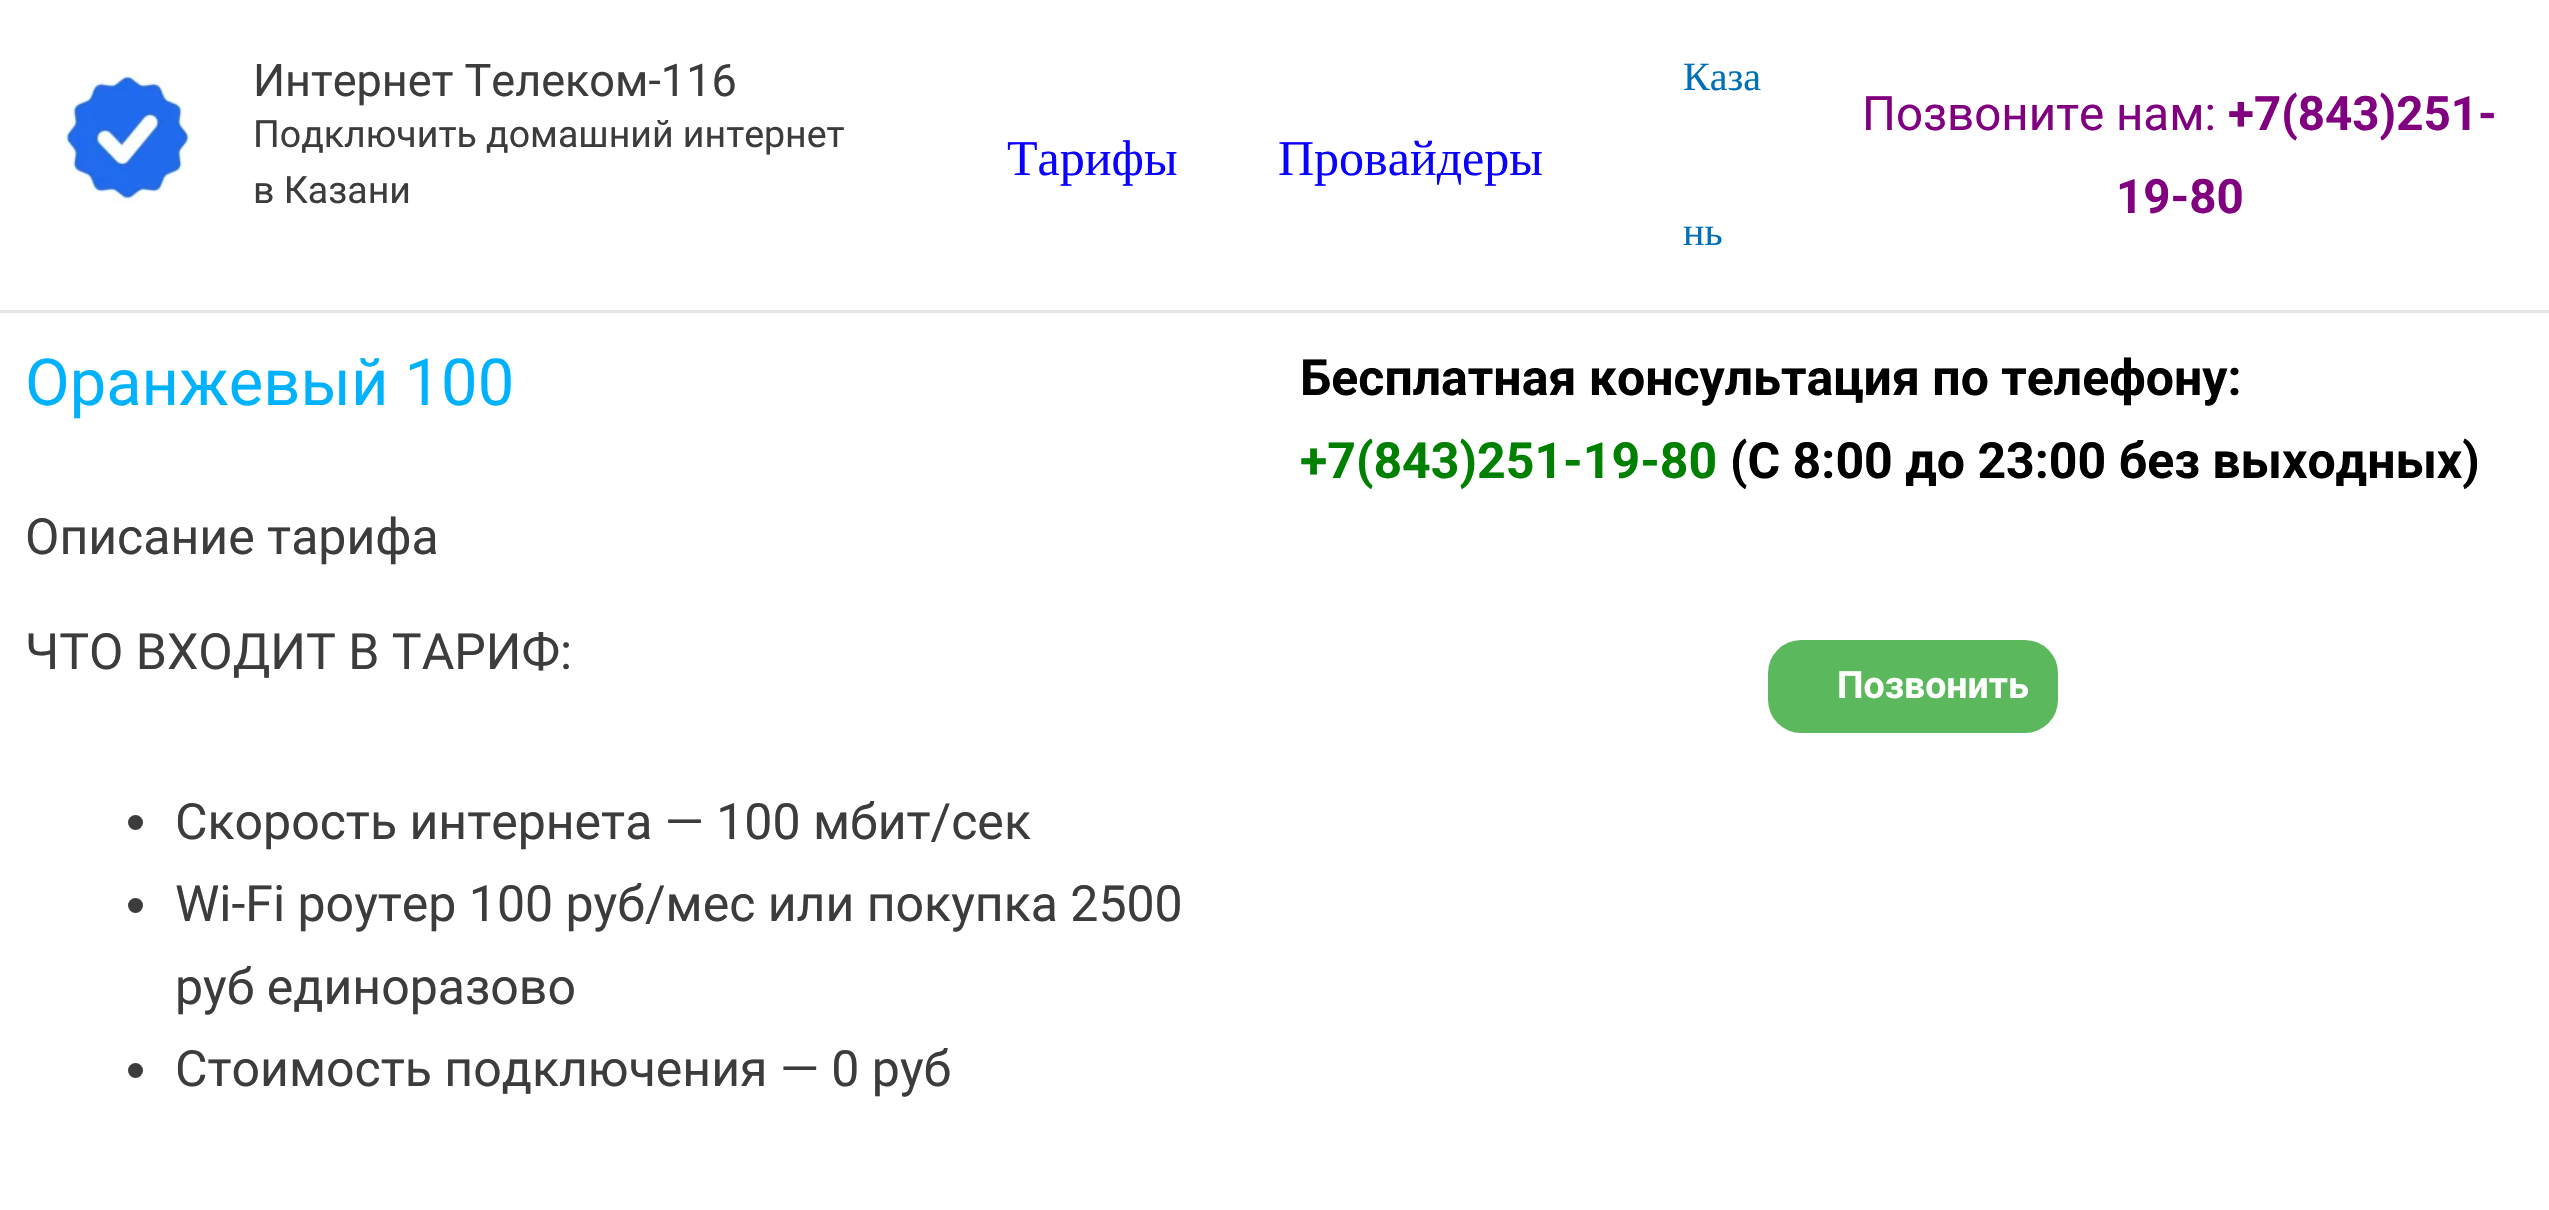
void draw(SkCanvas* canvas) {
	SkPaint fill;
	fill.setAntiAlias(true);
	auto makeFont = [&](const char* family, int weight, float size, bool italic = false) {
		SkFontStyle style(weight, SkFontStyle::kNormal_Width,
			italic ? SkFontStyle::kItalic_Slant : SkFontStyle::kUpright_Slant);
		SkFont result(fontMgr->matchFamilyStyle(family, style), size);
		result.setSubpixel(true);
		return result;
	};
	auto text = [&](const char* s, float x, float y, const SkFont& font) {
		canvas->drawString(s, x, y, font, fill);
	};
	auto box = [&](float l, float t, float r, float b) {
		canvas->drawRect(SkRect::MakeLTRB(l, t, r, b), fill);
	};
	auto roundBox = [&](float l, float t, float r, float b, float radius) {
		canvas->drawRoundRect(SkRect::MakeLTRB(l, t, r, b), radius, radius, fill);
	};
	auto picture = [&](const char* path, float l, float t, float r, float b) {
		auto image = SkImages::DeferredFromEncodedData(SkData::MakeFromFileName(path));
		canvas->drawImageRect(image, SkRect::MakeLTRB(l, t, r, b), SkSamplingOptions());
	};
	canvas->clear(0xFFFFFFFF);
	fill.setColor(0xFFE5E5E5);
	box(0, 310, 2549, 313);
	picture("image0.png", 62, 72, 193, 203);
	fill.setColor(0xFF3C3C3C);
	canvas->drawCircle(135.5f, 822.5f, 7.5f, fill);
	canvas->drawCircle(135.5f, 905.5f, 7.5f, fill);
	canvas->drawCircle(135.5f, 1070.5f, 7.5f, fill);
	fill.setColor(0xFF5CB85C);
	roundBox(1768, 640, 2058, 733, 33);
	auto font1 = makeFont("Roboto", 400, 45);
	fill.setColor(0xFF3C3C3C);
	text("Интернет Телеком-116", 253, 96, font1);
	auto font2 = makeFont("Roboto", 400, 37.5f);
	text("Подключить домашний интернет", 253, 147, font2);
	text("в Казани", 253, 203, font2);
	auto font3 = makeFont("Liberation Serif", 400, 50);
	fill.setColor(0xFF0A00FF);
	text("Тарифы", 1007, 175, font3);
	text("Провайдеры", 1278, 175, font3);
	auto font4 = makeFont("Liberation Serif", 400, 40);
	fill.setColor(0xFF0170B9);
	text("Каза", 1683, 90, font4);
	text("нь", 1683, 245, font4);
	auto font5 = makeFont("Roboto", 400, 47.5f);
	fill.setColor(0xFF800080);
	text("Позвоните нам:", 1862, 130, font5);
	auto font6 = makeFont("Roboto", 700, 47.5f);
	text("+7(843)251-", 2228, 130, font6);
	text("19-80", 2116, 213, font6);
	auto font7 = makeFont("Roboto", 400, 65);
	fill.setColor(0xFF00B2FC);
	text("Оранжевый 100", 25, 405, font7);
	auto font8 = makeFont("Roboto", 400, 50);
	fill.setColor(0xFF3C3C3C);
	text("Описание тарифа", 25, 554, font8);
	text("ЧТО ВХОДИТ В ТАРИФ:", 25, 669, font8);
	text("Скорость интернета — 100 мбит/сек", 175, 839, font8);
	text("Wi-Fi роутер 100 руб/мес или покупка 2500", 175, 921, font8);
	text("руб единоразово", 175, 1004, font8);
	text("Стоимость подключения — 0 руб", 175, 1086, font8);
	auto font9 = makeFont("Roboto", 700, 50);
	fill.setColor(0xFF000000);
	text("Бесплатная консультация по телефону:", 1300, 395, font9);
	fill.setColor(0xFF008000);
	text("+7(843)251-19-80", 1300, 478, font9);
	fill.setColor(0xFF000000);
	text("(С 8:00 до 23:00 без выходных)", 1730, 478, font9);
	auto font10 = makeFont("Roboto", 700, 37.5f);
	fill.setColor(0xFFFFFFFF);
	text("Позвонить", 1837, 698, font10);
}
